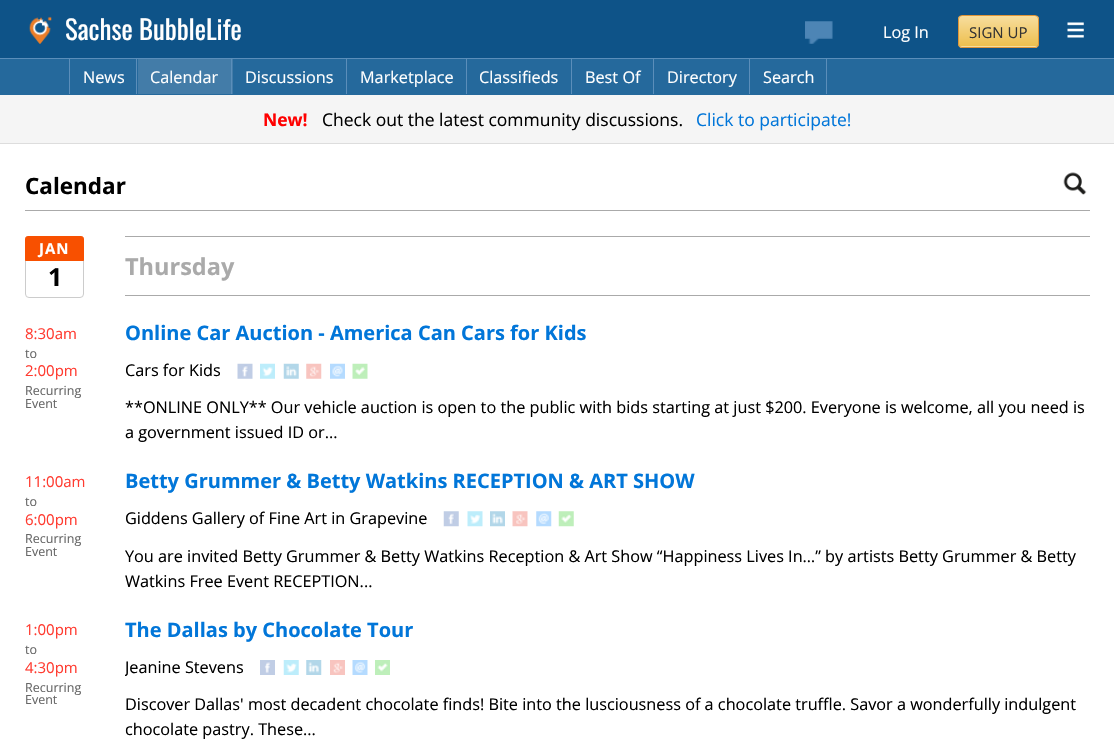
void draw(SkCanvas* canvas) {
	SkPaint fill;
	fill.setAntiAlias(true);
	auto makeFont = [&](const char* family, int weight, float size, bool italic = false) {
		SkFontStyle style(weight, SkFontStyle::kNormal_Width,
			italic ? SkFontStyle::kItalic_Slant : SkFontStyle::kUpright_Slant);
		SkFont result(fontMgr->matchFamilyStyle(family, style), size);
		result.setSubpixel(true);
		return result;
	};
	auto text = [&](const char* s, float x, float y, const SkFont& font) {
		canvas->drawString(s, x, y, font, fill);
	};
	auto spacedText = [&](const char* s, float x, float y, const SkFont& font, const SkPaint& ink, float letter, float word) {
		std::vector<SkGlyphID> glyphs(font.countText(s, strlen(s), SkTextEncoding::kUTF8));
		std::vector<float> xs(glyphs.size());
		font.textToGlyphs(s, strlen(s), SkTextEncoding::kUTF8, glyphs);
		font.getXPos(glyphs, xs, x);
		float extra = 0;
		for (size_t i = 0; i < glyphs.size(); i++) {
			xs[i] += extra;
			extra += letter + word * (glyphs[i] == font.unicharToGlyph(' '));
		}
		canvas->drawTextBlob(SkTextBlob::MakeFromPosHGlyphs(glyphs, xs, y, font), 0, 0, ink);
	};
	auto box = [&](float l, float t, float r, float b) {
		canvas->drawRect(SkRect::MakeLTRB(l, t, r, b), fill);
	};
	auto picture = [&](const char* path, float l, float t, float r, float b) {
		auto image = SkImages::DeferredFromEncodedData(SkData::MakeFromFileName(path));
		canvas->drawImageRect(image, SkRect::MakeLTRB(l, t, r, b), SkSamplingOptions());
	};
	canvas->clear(0xFFFFFFFF);
	fill.setColor(0xFF0E5388);
	box(0, 0, 1114, 58);
	picture("image0.png", 29, 16, 52, 44);
	picture("image1.png", 805, 21, 833, 44);
	canvas->save();
	canvas->clipPath(SkPathBuilder().moveTo(962, 15).lineTo(1035, 15).cubicTo(1037, 15, 1039, 17, 1039, 19).lineTo(1039, 44).cubicTo(1039, 46, 1037, 48, 1035, 48).lineTo(962, 48).cubicTo(960, 48, 958, 46, 958, 44).lineTo(958, 19).cubicTo(958, 17, 960, 15, 962, 15).close().detach(), true);
	{
		const SkColor colors[] = {0xFFF7DD9E, 0xFFEDBF4F};
		const float stops[] = {0, 1};
		const SkPoint ends[] = {{998, 16}, {998, 46}};
		fill.setShader(SkGradientShader::MakeLinear(ends, colors, stops, 2, SkTileMode::kClamp));
		fill.setAlpha(255);
	}
	box(958, 16, 1039, 46);
	{
		const SkColor colors[] = {0xFFF7DD9E, 0xFFEDBF4F};
		const float stops[] = {0, 1};
		const SkPoint ends[] = {{998, 46}, {998, 76}};
		fill.setShader(SkGradientShader::MakeLinear(ends, colors, stops, 2, SkTileMode::kClamp));
		fill.setAlpha(255);
	}
	box(958, 46, 1039, 48);
	canvas->restore();
	fill.setStyle(SkPaint::kStroke_Style);
	fill.setStrokeWidth(1);
	fill.setShader(nullptr);
	fill.setColor(0xFFDF9538);
	canvas->drawRoundRect(SkRect::MakeLTRB(958.5f, 15.5f, 1038.5f, 47.5f), 3.5f, 3.5f, fill);
	picture("image2.png", 1067, 22, 1084, 38);
	fill.setStyle(SkPaint::kFill_Style);
	fill.setColor(0xFF25699C);
	box(0, 59, 1114, 95);
	fill.setColor(0xFF5B8EBA);
	box(0, 58, 1114, 59);
	box(136, 59, 137, 94);
	box(69, 59, 70, 94);
	fill.setColor(0xFF437CA8);
	box(138, 59, 233, 94);
	fill.setColor(0xFF5B8EBA);
	box(231, 59, 232, 94);
	box(346, 59, 347, 94);
	box(466, 59, 467, 94);
	box(571, 59, 572, 94);
	box(653, 59, 654, 94);
	box(749, 59, 750, 94);
	box(826, 59, 827, 94);
	fill.setColor(0xFFF5F5F5);
	box(0, 95, 1114, 143);
	fill.setColor(0xFFDDDDDD);
	box(0, 143, 1114, 144);
	fill.setColor(0xFFAAAAAA);
	box(25, 210, 1090, 211);
	picture("image3.png", 1063, 172, 1087, 195);
	fill.setStyle(SkPaint::kStroke_Style);
	fill.setColor(0xFFCCCCCC);
	canvas->drawRoundRect(SkRect::MakeLTRB(25.5f, 236.5f, 83.5f, 297.5f), 3.5f, 3.5f, fill);
	fill.setStyle(SkPaint::kFill_Style);
	fill.setColor(0xFFF85000);
	canvas->drawPath(SkPathBuilder().moveTo(27.5f, 236.5f).lineTo(81.5f, 236.5f).cubicTo(82.5f, 236.5f, 83.5f, 237.5f, 83.5f, 238.5f).lineTo(83.5f, 260.5f).lineTo(25.5f, 260.5f).lineTo(25.5f, 238.5f).cubicTo(25.5f, 237.5f, 26.5f, 236.5f, 27.5f, 236.5f).close().detach(), fill);
	fill.setStyle(SkPaint::kStroke_Style);
	canvas->drawPath(SkPathBuilder().moveTo(27.5f, 236.5f).lineTo(81.5f, 236.5f).cubicTo(82.5f, 236.5f, 83.5f, 237.5f, 83.5f, 238.5f).lineTo(83.5f, 260.5f).lineTo(25.5f, 260.5f).lineTo(25.5f, 238.5f).cubicTo(25.5f, 237.5f, 26.5f, 236.5f, 27.5f, 236.5f).close().detach(), fill);
	fill.setStyle(SkPaint::kFill_Style);
	fill.setColor(0xFFAAAAAA);
	box(125, 236, 1090, 237);
	box(125, 295, 1090, 296);
	picture("image4.png", 237, 363, 253, 379);
	picture("image5.png", 260, 363, 275, 379);
	picture("image6.png", 283, 363, 299, 379);
	picture("image7.png", 306, 363, 322, 379);
	picture("image8.png", 330, 363, 345, 379);
	picture("image9.png", 352, 363, 368, 379);
	picture("image10.png", 443, 511, 459, 527);
	picture("image11.png", 467, 511, 483, 527);
	picture("image12.png", 490, 511, 505, 527);
	picture("image13.png", 512, 511, 528, 527);
	picture("image14.png", 536, 511, 552, 527);
	picture("image15.png", 558, 511, 574, 527);
	picture("image16.png", 260, 660, 275, 675);
	picture("image17.png", 283, 660, 299, 675);
	picture("image18.png", 306, 660, 322, 675);
	picture("image19.png", 330, 660, 345, 675);
	picture("image20.png", 352, 660, 368, 675);
	picture("image21.png", 375, 660, 390, 675);
	auto font1 = makeFont("Oswald", 400, 26.75f);
	fill.setColor(0xFFFFFFFF);
	text("Sachse BubbleLife", 65, 40, font1);
	auto font2 = makeFont("Open Sans", 400, 16.25f);
	text("Log In", 883, 38, font2);
	auto font3 = makeFont("Open Sans", 400, 15);
	fill.setColor(0xFF333333);
	text("SIGN UP", 969, 38, font3);
	fill.setColor(0xFFFFFFFF);
	text("News", 83, 83, font2);
	text("Calendar", 150, 83, font2);
	text("Discussions", 245, 83, font2);
	text("Marketplace", 360, 83, font2);
	text("Classifieds", 479, 83, font2);
	text("Best Of", 585, 83, font2);
	text("Directory", 667, 83, font2);
	text("Search", 763, 83, font2);
	auto font4 = makeFont("Open Sans", 700, 17.5f);
	fill.setColor(0xFFFF0000);
	text("New!", 263, 126, font4);
	auto font5 = makeFont("Open Sans", 400, 17.5f);
	fill.setColor(0xFF000000);
	text("Check out the latest community discussions.", 322, 126, font5);
	fill.setColor(0xFF0176D9);
	text("Click to participate!", 696, 126, font5);
	auto font6 = makeFont("Open Sans", 700, 22.5f);
	fill.setColor(0xFF000000);
	text("Calendar", 25, 194, font6);
	auto font7 = makeFont("Open Sans", 700, 15);
	fill.setColor(0xFFFFFFFF);
	spacedText("JAN", 39, 254, font7, fill, 1, 0);
	auto font8 = makeFont("Open Sans", 700, 25);
	fill.setColor(0xFF000000);
	spacedText("1", 48, 286, font8, fill, 4, 0);
	auto font9 = makeFont("Open Sans", 700, 23.5f);
	fill.setColor(0xFFAAAAAA);
	text("Thursday", 125, 275, font9);
	fill.setColor(0xFFFF3B30);
	text("8:30am", 25, 339, font3);
	auto font10 = makeFont("Open Sans", 400, 12.5f);
	fill.setColor(0xFF666666);
	text("to", 25, 358, font10);
	fill.setColor(0xFFFF3B30);
	text("2:00pm", 25, 376, font3);
	fill.setColor(0xFF666666);
	text("Recurring", 25, 395, font10);
	text("Event", 25, 408, font10);
	auto font11 = makeFont("Open Sans", 700, 20);
	fill.setColor(0xFF0176D9);
	text("Online Car Auction - America Can Cars for Kids", 125, 340, font11);
	fill.setColor(0xFF000000);
	text("Cars for Kids", 125, 376, font2);
	text("**ONLINE ONLY** Our vehicle auction is open to the public with bids starting at just $200. Everyone is welcome, all you need is", 125, 413, font2);
	text("a government issued ID or...", 125, 438, font2);
	fill.setColor(0xFFFF3B30);
	text("11:00am", 25, 487, font3);
	fill.setColor(0xFF666666);
	text("to", 25, 506, font10);
	fill.setColor(0xFFFF3B30);
	text("6:00pm", 25, 525, font3);
	fill.setColor(0xFF666666);
	text("Recurring", 25, 543, font10);
	text("Event", 25, 556, font10);
	fill.setColor(0xFF0176D9);
	text("Betty Grummer & Betty Watkins RECEPTION & ART SHOW", 125, 488, font11);
	fill.setColor(0xFF000000);
	text("Giddens Gallery of Fine Art in Grapevine", 125, 524, font2);
	text("You are invited Betty Grummer & Betty Watkins Reception & Art Show “Happiness Lives In…” by artists Betty Grummer & Betty", 125, 562, font2);
	text("Watkins Free Event RECEPTION...", 125, 587, font2);
	fill.setColor(0xFFFF3B30);
	text("1:00pm", 25, 635, font3);
	fill.setColor(0xFF666666);
	text("to", 25, 654, font10);
	fill.setColor(0xFFFF3B30);
	text("4:30pm", 25, 673, font3);
	fill.setColor(0xFF666666);
	text("Recurring", 25, 692, font10);
	text("Event", 25, 704, font10);
	fill.setColor(0xFF0176D9);
	text("The Dallas by Chocolate Tour", 125, 637, font11);
	canvas->save();
	canvas->clipRect(SkRect::MakeLTRB(125, 618, 1090, 754));
	fill.setColor(0xFF000000);
	text("Jeanine Stevens", 125, 673, font2);
	canvas->restore();
	text("Discover Dallas' most decadent chocolate finds! Bite into the lusciousness of a chocolate truffle. Savor a wonderfully indulgent", 125, 710, font2);
	text("chocolate pastry. These...", 125, 735, font2);
}
